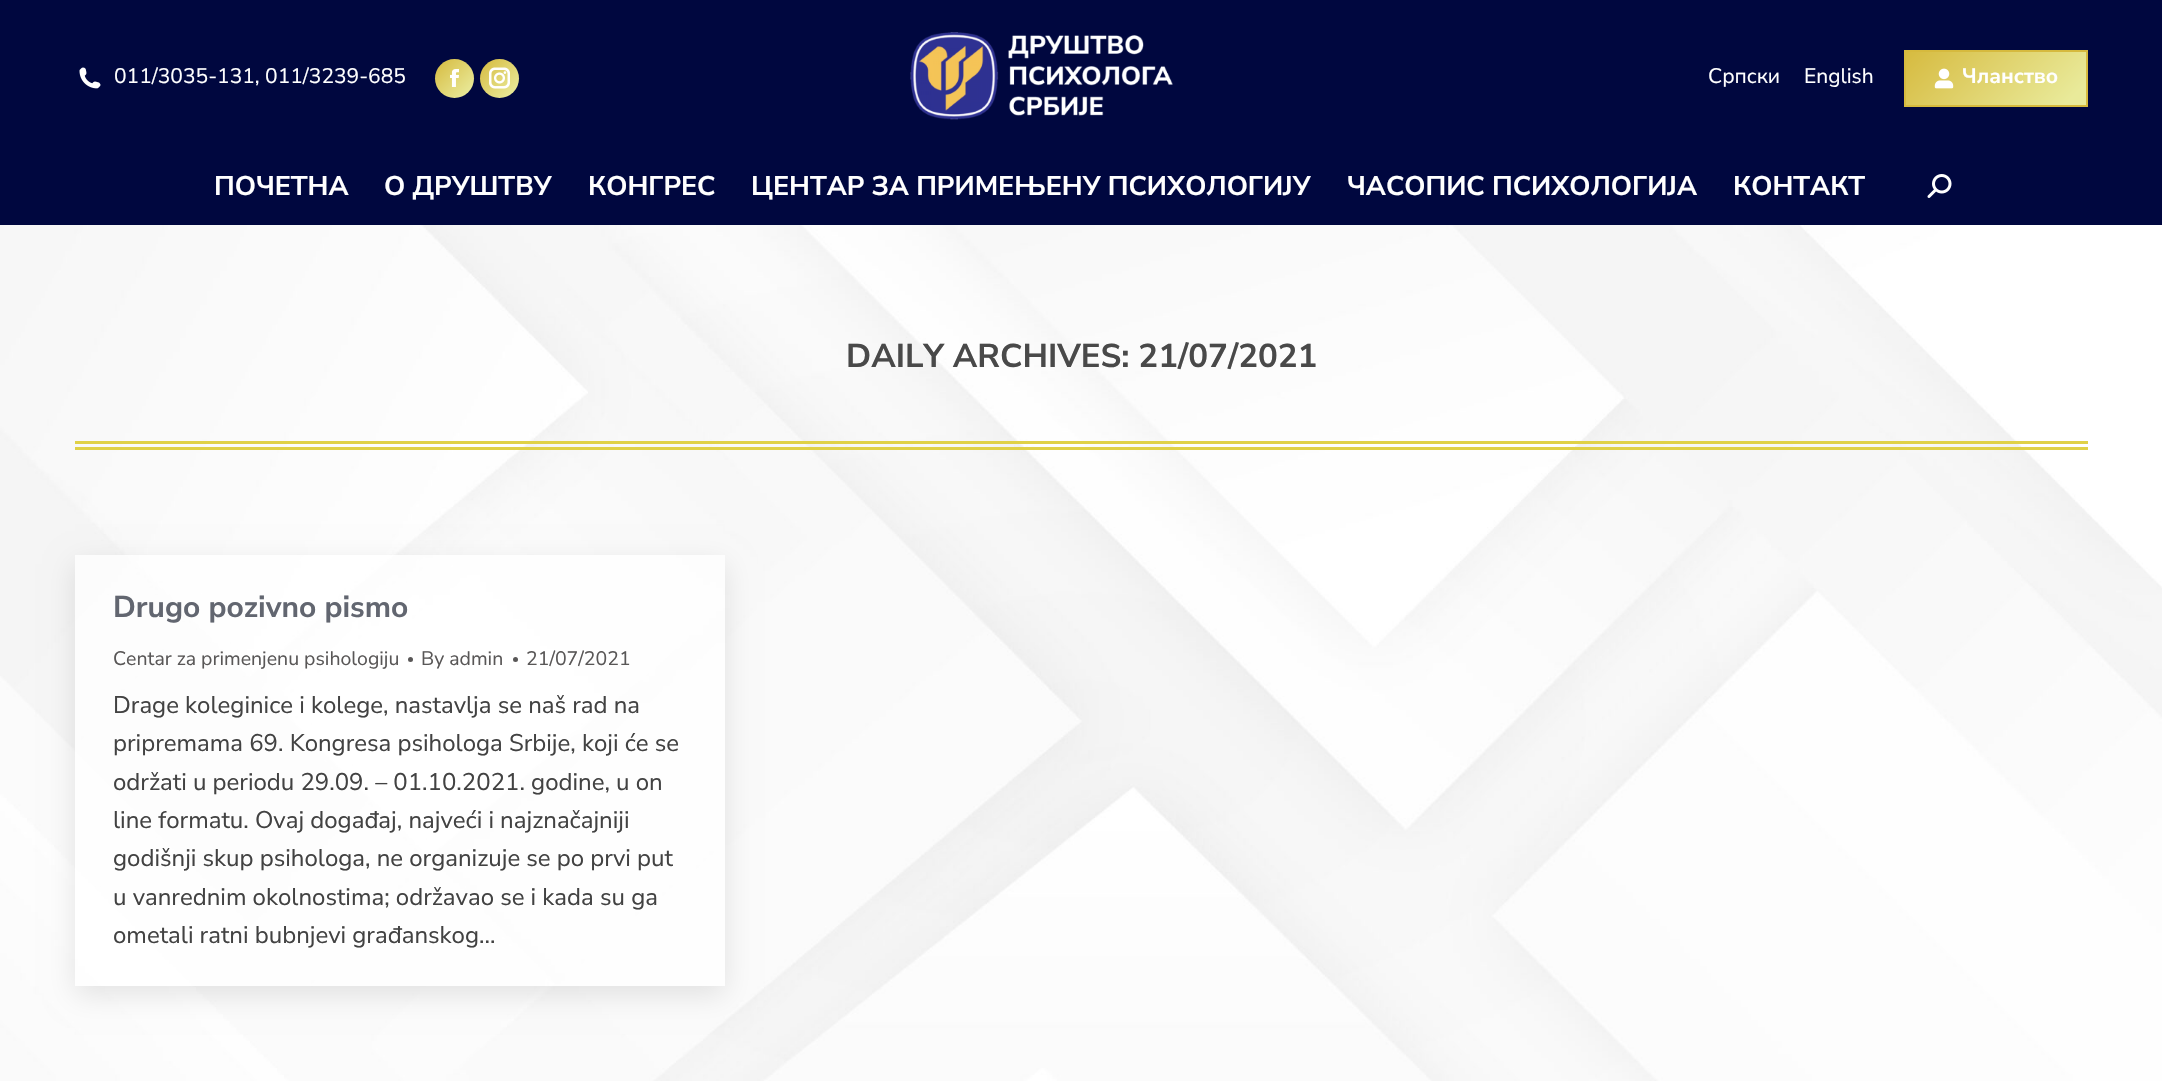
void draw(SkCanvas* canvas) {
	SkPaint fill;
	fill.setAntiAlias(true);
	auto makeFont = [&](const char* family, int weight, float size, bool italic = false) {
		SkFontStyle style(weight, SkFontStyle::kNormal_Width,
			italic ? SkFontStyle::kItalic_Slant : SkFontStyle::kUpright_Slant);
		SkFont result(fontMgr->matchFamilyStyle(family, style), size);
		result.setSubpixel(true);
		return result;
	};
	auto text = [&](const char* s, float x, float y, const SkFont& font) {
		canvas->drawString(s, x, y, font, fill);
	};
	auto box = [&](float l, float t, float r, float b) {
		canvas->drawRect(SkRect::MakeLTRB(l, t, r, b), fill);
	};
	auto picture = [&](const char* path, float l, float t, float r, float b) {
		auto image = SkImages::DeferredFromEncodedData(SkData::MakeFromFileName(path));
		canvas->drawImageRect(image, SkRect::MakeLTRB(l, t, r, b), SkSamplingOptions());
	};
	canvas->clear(0xFFFFFFFF);
	fill.setColor(0xFF00073F);
	box(0, 0, 2162, 225);
	picture("image0.png", 79, 67, 101, 89);
	{
		const SkColor colors[] = {0xFFD6BA3E, 0xFFE9EA9A};
		const float stops[] = {0, 0.9f};
		const SkPoint ends[] = {{435, 59}, {474, 98}};
		fill.setShader(SkGradientShader::MakeLinear(ends, colors, stops, 2, SkTileMode::kClamp));
		fill.setAlpha(255);
	}
	canvas->drawCircle(454.5f, 78.5f, 19.5f, fill);
	picture("image1.png", 450, 69, 459, 87);
	{
		const SkColor colors[] = {0xFFD6BA3E, 0xFFE9EA9A};
		const float stops[] = {0, 0.9f};
		const SkPoint ends[] = {{480, 59}, {519, 98}};
		fill.setShader(SkGradientShader::MakeLinear(ends, colors, stops, 2, SkTileMode::kClamp));
		fill.setAlpha(255);
	}
	canvas->drawCircle(499.5f, 78.5f, 19.5f, fill);
	picture("image2.png", 489, 67, 510, 89);
	picture("image3.png", 910, 32, 1173, 120);
	{
		const SkColor colors[] = {0xFFD6BA3E, 0xFFE9EA9A};
		const float stops[] = {0, 0.9f};
		const SkPoint ends[] = {{1935, 18}, {2056, 138}};
		fill.setShader(SkGradientShader::MakeLinear(ends, colors, stops, 2, SkTileMode::kClamp));
		fill.setAlpha(255);
	}
	box(1906, 52, 2086, 105);
	fill.setStyle(SkPaint::kStroke_Style);
	fill.setStrokeWidth(2);
	fill.setShader(nullptr);
	fill.setColor(0xFFD6BA3E);
	canvas->drawRect(SkRect::MakeLTRB(1905, 51, 2087, 106), fill);
	picture("image4.png", 1934, 68, 1954, 89);
	picture("image5.png", 1927, 174, 1952, 198);
	picture("image6.png", 0, 225, 2162, 1081);
	fill.setStyle(SkPaint::kFill_Style);
	fill.setColor(0xFFE0D147);
	box(75, 441, 2088, 444);
	box(75, 447, 2088, 450);
	canvas->save();
	canvas->clipPath(SkPathBuilder(SkPathFillType::kEvenOdd).moveTo(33, 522).lineTo(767, 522).lineTo(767, 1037).lineTo(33, 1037).close().moveTo(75, 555).lineTo(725, 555).lineTo(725, 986).lineTo(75, 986).close().detach(), true);
	fill.setColor(0x1A000000);
	fill.setMaskFilter(SkMaskFilter::MakeBlur(kNormal_SkBlurStyle, 13.5f));
	canvas->drawRect(SkRect::MakeLTRB(75, 564, 725, 995), fill);
	fill.setMaskFilter(nullptr);
	canvas->restore();
	fill.setColor(0xB5FFFFFF);
	box(75, 555, 725, 986);
	fill.setColor(0xFF595757);
	canvas->drawCircle(410.5f, 659.5f, 2.5f, fill);
	canvas->drawCircle(515.5f, 659.5f, 2.5f, fill);
	auto font1 = makeFont("Nunito Sans", 400, 21);
	fill.setColor(0xFFFFFFFF);
	text("011/3035-131, 011/3239-685", 114, 83, font1);
	text("Српски", 1708, 83, font1);
	text("English", 1804, 83, font1);
	auto font2 = makeFont("Nunito Sans", 700, 21);
	text("Чланство", 1962, 83, font2);
	auto font3 = makeFont("Nunito Sans", 700, 27);
	text("ПОЧЕТНА", 214, 195, font3);
	text("О ДРУШТВУ", 384, 195, font3);
	text("КОНГРЕС", 588, 195, font3);
	text("ЦЕНТАР ЗА ПРИМЕЊЕНУ ПСИХОЛОГИЈУ", 751, 195, font3);
	text("ЧАСОПИС ПСИХОЛОГИЈА", 1347, 195, font3);
	text("КОНТАКТ", 1733, 195, font3);
	auto font4 = makeFont("Nunito Sans", 700, 33);
	fill.setColor(0xFF494949);
	text("DAILY ARCHIVES: 21/07/2021", 846, 367, font4);
	auto font5 = makeFont("Nunito Sans", 700, 30);
	fill.setColor(0xFF626670);
	text("Drugo pozivno pismo", 113, 617, font5);
	auto font6 = makeFont("Nunito Sans", 400, 19.5f);
	fill.setColor(0xFF595757);
	text("Centar za primenjenu psihologiju", 113, 665, font6);
	text("By admin", 421, 665, font6);
	text("21/07/2021", 526, 665, font6);
	auto font7 = makeFont("Nunito Sans", 400, 24);
	fill.setColor(0xFF424242);
	text("Drage koleginice i kolege, nastavlja se naš rad na", 113, 713, font7);
	text("pripremama 69. Kongresa psihologa Srbije, koji će se", 113, 751, font7);
	text("održati u periodu 29.09. – 01.10.2021. godine, u on", 113, 790, font7);
	text("line formatu. Ovaj događaj, najveći i najznačajniji", 113, 828, font7);
	text("godišnji skup psihologa, ne organizuje se po prvi put", 113, 866, font7);
	text("u vanrednim okolnostima; održavao se i kada su ga", 113, 905, font7);
	text("ometali ratni bubnjevi građanskog…", 113, 943, font7);
}
